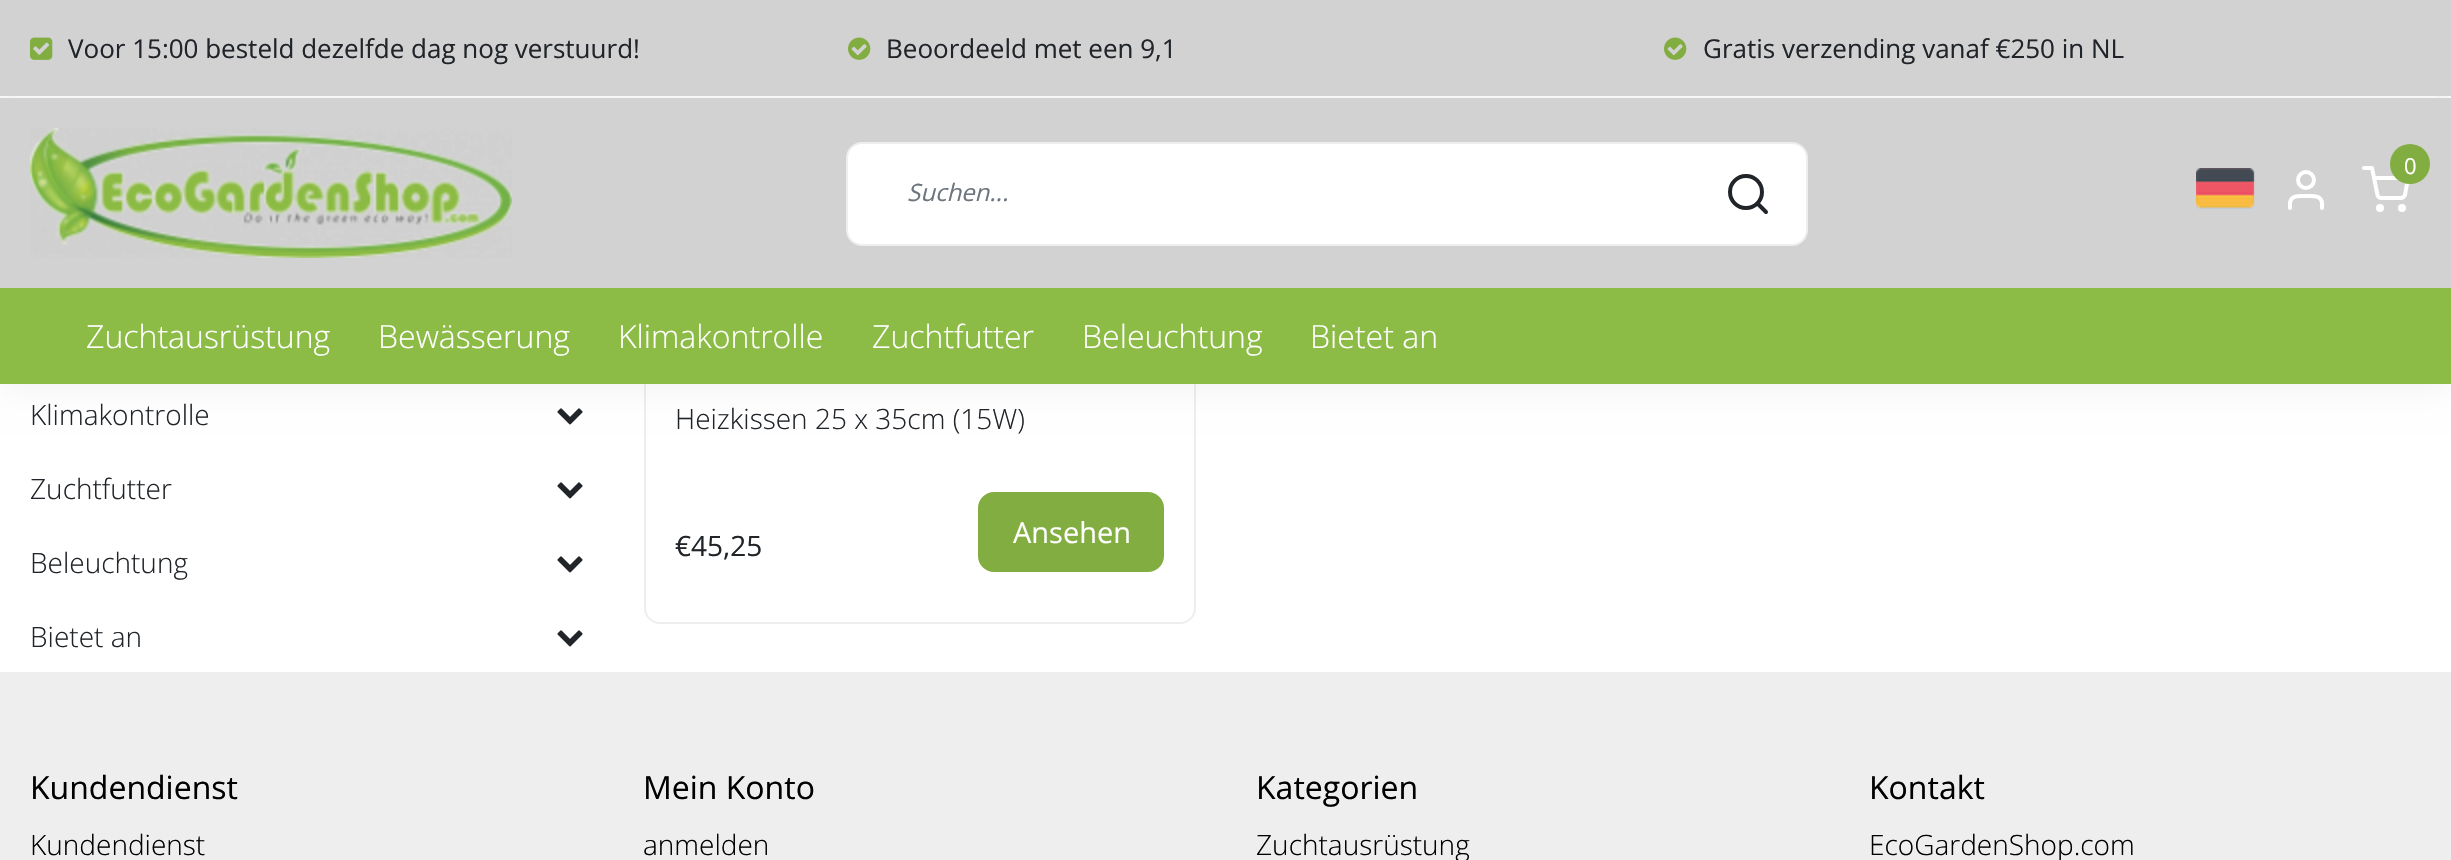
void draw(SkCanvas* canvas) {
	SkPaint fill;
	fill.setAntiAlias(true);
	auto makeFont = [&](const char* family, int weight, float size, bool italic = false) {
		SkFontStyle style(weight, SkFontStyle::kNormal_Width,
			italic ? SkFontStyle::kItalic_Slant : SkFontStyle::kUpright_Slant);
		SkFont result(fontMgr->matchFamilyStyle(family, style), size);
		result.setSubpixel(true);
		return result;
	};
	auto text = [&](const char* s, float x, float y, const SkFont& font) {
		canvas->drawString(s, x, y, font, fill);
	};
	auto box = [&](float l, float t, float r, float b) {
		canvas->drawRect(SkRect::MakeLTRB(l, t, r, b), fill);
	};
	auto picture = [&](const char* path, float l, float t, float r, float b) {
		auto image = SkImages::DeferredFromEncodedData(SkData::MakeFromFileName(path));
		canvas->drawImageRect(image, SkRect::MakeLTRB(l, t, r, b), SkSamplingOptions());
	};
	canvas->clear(0xFFFFFFFF);
	picture("image4.png", 557, 408, 583, 425);
	fill.setStyle(SkPaint::kStroke_Style);
	fill.setStrokeWidth(2);
	fill.setColor(0xFFEEEEEE);
	canvas->drawRoundRect(SkRect::MakeLTRB(645, -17, 1195, 623), 15, 15, fill);
	fill.setStyle(SkPaint::kFill_Style);
	fill.setColor(0x0D000000);
	fill.setMaskFilter(SkMaskFilter::MakeBlur(kNormal_SkBlurStyle, 16));
	canvas->drawRect(SkRect::MakeLTRB(0, 4, 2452, 388), fill);
	fill.setMaskFilter(nullptr);
	fill.setColor(0xFFD2D2D2);
	box(0, 0, 2451, 96);
	fill.setColor(0xFFF7F7F7);
	box(16, 96, 2436, 98);
	picture("image0.png", 30, 37, 53, 60);
	picture("image1.png", 848, 37, 871, 60);
	picture("image1.png", 1664, 37, 1687, 60);
	fill.setColor(0xFFD2D2D2);
	box(0, 98, 2451, 288);
	picture("image2.png", 30, 128, 512, 258);
	picture("image3.png", 2196, 168, 2255, 209);
	fill.setStyle(SkPaint::kStroke_Style);
	fill.setStrokeWidth(4);
	fill.setStrokeCap(SkPaint::kRound_Cap);
	fill.setStrokeJoin(SkPaint::kRound_Join);
	fill.setColor(0xFFFFFFFF);
	canvas->drawPath(SkPathBuilder().moveTo(2322, 208).lineTo(2322, 202.5f).cubicTo(2320.5f, 194.5f, 2312, 196, 2306, 196).cubicTo(2300, 196, 2291.5f, 194.5f, 2290, 202.5f).lineTo(2290, 208).detach(), fill);
	fill.setStrokeCap(SkPaint::kButt_Cap);
	fill.setStrokeJoin(SkPaint::kMiter_Join);
	canvas->drawCircle(2306, 180, 8, fill);
	fill.setStrokeCap(SkPaint::kRound_Cap);
	fill.setStrokeJoin(SkPaint::kRound_Join);
	canvas->drawPath(SkPathBuilder().moveTo(2364, 168).lineTo(2372, 168).lineTo(2377.5f, 195).cubicTo(2377.5f, 196.5f, 2379.5f, 198, 2381.5f, 198).lineTo(2401, 198).cubicTo(2402.5f, 198, 2404.5f, 196.5f, 2405, 195).lineTo(2408, 178).lineTo(2374, 178).detach(), fill);
	fill.setStyle(SkPaint::kFill_Style);
	fill.setColor(0xFF82AD41);
	canvas->drawCircle(2410, 164, 20, fill);
	fill.setStyle(SkPaint::kStroke_Style);
	fill.setStrokeCap(SkPaint::kButt_Cap);
	fill.setStrokeJoin(SkPaint::kMiter_Join);
	fill.setColor(0xFFFFFFFF);
	canvas->drawCircle(2380, 208, 2, fill);
	canvas->drawCircle(2402, 208, 2, fill);
	fill.setStyle(SkPaint::kFill_Style);
	canvas->drawRoundRect(SkRect::MakeLTRB(847, 143, 1807, 245), 15, 15, fill);
	fill.setStyle(SkPaint::kStroke_Style);
	fill.setStrokeWidth(2);
	fill.setColor(0xFFEEEEEE);
	canvas->drawRoundRect(SkRect::MakeLTRB(847, 143, 1807, 245), 15, 15, fill);
	fill.setStrokeWidth(4);
	fill.setColor(0xFF212529);
	canvas->drawCircle(1746, 192, 16, fill);
	fill.setStrokeCap(SkPaint::kRound_Cap);
	fill.setStrokeJoin(SkPaint::kRound_Join);
	canvas->drawPath(SkPathBuilder().moveTo(1766, 212).lineTo(1757.5f, 203.5f).detach(), fill);
	fill.setStyle(SkPaint::kFill_Style);
	fill.setColor(0xFF8CBB46);
	box(0, 288, 2451, 384);
	picture("image4.png", 557, 482, 583, 499);
	picture("image4.png", 557, 556, 583, 573);
	picture("image4.png", 557, 630, 583, 647);
	fill.setColor(0xFF82AD41);
	canvas->drawRoundRect(SkRect::MakeLTRB(979, 493, 1163, 571), 15, 15, fill);
	fill.setStyle(SkPaint::kStroke_Style);
	fill.setStrokeWidth(2);
	fill.setStrokeCap(SkPaint::kButt_Cap);
	fill.setStrokeJoin(SkPaint::kMiter_Join);
	canvas->drawRoundRect(SkRect::MakeLTRB(979, 493, 1163, 571), 15, 15, fill);
	fill.setStyle(SkPaint::kFill_Style);
	fill.setColor(0xFFEEEEEE);
	box(0, 672, 2451, 860);
	auto font1 = makeFont("Open Sans", 400, 26);
	fill.setColor(0xFF212529);
	text("Voor 15:00 besteld dezelfde dag nog verstuurd!", 68, 58, font1);
	text("Beoordeeld met een 9,1", 886, 58, font1);
	text("Gratis verzending vanaf €250 in NL", 1703, 58, font1);
	auto font2 = makeFont("Open Sans", 400, 22);
	fill.setColor(0xFFFFFFFF);
	text("0", 2404, 174, font2);
	auto font3 = makeFont("Open Sans", 400, 24, true);
	fill.setColor(0xFF6C757D);
	text("Suchen...", 907, 201, font3);
	auto font4 = makeFont("Open Sans", 300, 32);
	fill.setColor(0xFFFFFFFF);
	text("Zuchtausrüstung", 86, 348, font4);
	text("Bewässerung", 378, 348, font4);
	text("Klimakontrolle", 618, 348, font4);
	text("Zuchtfutter", 872, 348, font4);
	text("Beleuchtung", 1082, 348, font4);
	text("Bietet an", 1310, 348, font4);
	auto font5 = makeFont("Open Sans", 300, 28);
	fill.setColor(0xFF212529);
	text("Klimakontrolle", 30, 425, font5);
	text("Zuchtfutter", 30, 499, font5);
	text("Beleuchtung", 30, 573, font5);
	text("Bietet an", 30, 647, font5);
	text("Heizkissen 25 x 35cm (15W)", 675, 429, font5);
	auto font6 = makeFont("Open Sans", 400, 29);
	fill.setColor(0xFFFFFFFF);
	text("Ansehen", 1013, 543, font6);
	auto font7 = makeFont("Open Sans", 400, 28);
	fill.setColor(0xFF212529);
	text("€45,25", 675, 556, font7);
	auto font8 = makeFont("Open Sans", 400, 32);
	fill.setColor(0xFF000000);
	text("Kundendienst", 30, 799, font8);
	text("Kundendienst", 30, 855, font5);
	text("Mein Konto", 643, 799, font8);
	text("anmelden", 643, 855, font5);
	text("Kategorien", 1256, 799, font8);
	text("Zuchtausrüstung", 1256, 855, font5);
	text("Kontakt", 1869, 799, font8);
	text("EcoGardenShop.com", 1869, 855, font5);
}
